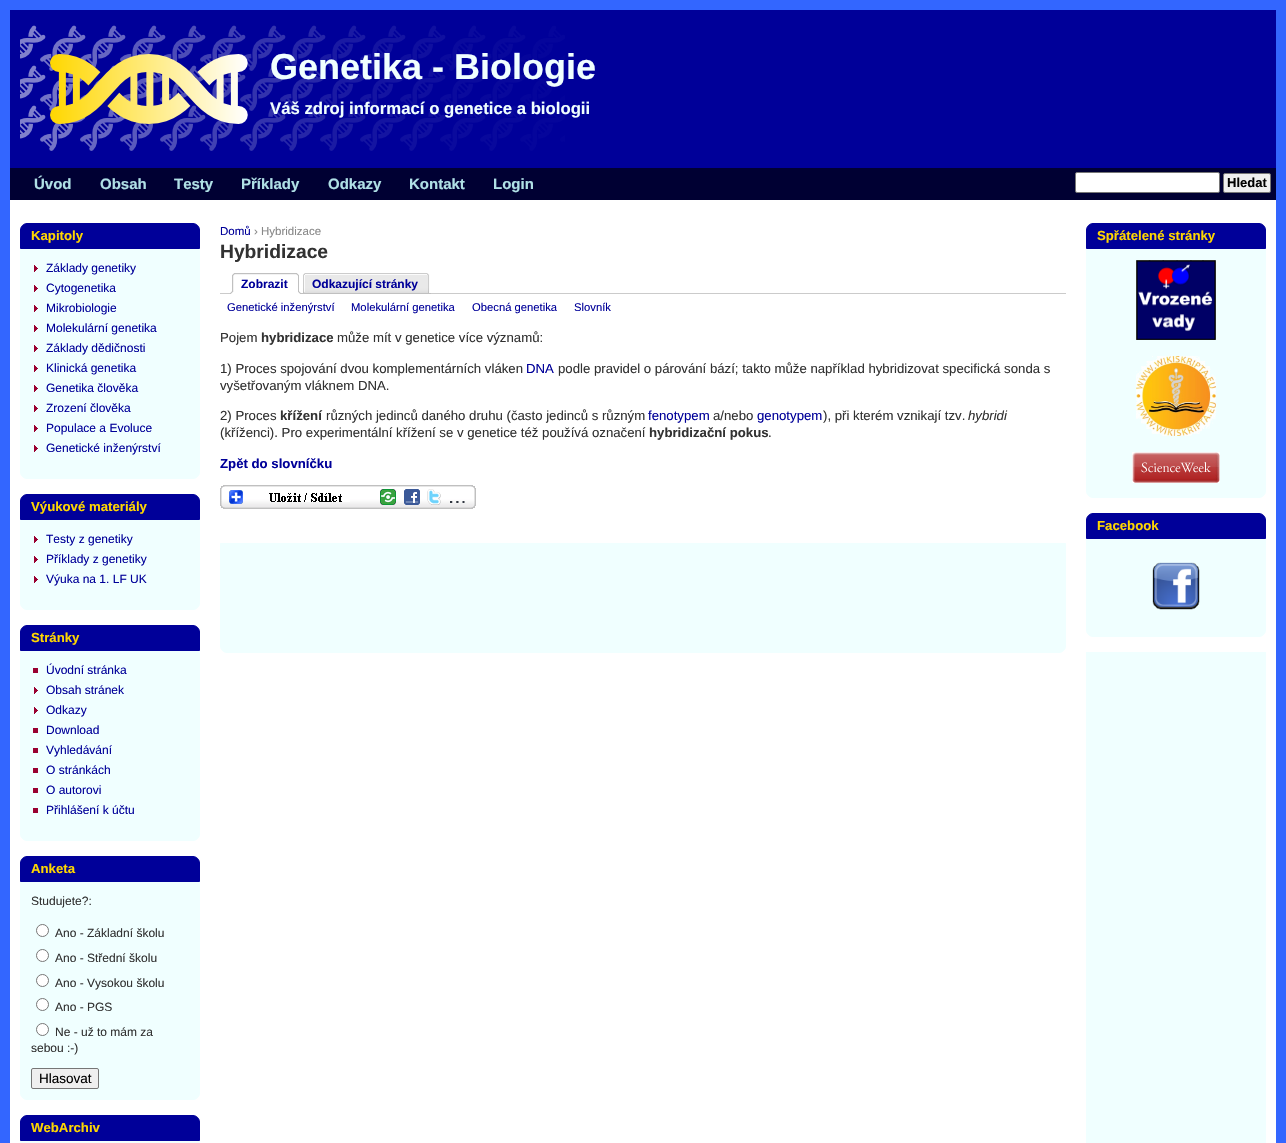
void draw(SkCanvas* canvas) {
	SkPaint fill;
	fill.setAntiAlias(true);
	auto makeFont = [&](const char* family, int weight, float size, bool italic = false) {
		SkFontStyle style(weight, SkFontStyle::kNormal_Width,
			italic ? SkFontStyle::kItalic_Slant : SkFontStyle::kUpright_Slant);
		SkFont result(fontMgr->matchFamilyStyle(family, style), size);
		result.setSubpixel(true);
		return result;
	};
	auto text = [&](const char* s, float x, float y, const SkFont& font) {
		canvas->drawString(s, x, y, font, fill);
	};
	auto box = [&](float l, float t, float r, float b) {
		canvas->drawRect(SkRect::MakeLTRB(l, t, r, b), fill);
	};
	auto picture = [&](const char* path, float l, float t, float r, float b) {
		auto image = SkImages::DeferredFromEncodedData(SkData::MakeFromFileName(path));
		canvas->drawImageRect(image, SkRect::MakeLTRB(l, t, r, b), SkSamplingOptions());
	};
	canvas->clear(0xFF3366FF);
	fill.setColor(0xFFFFFFFF);
	box(10, 200, 1276, 1143);
	fill.setColor(0xFF000099);
	box(10, 10, 1276, 168);
	picture("image0.png", 20, 25, 565, 151);
	fill.setColor(0xFF000033);
	box(10, 168, 1276, 200);
	fill.setColor(0xFFFFFFFF);
	canvas->drawRoundRect(SkRect::MakeLTRB(1075.5f, 172.5f, 1219.5f, 192.5f), 1.5f, 1.5f, fill);
	fill.setStyle(SkPaint::kStroke_Style);
	fill.setStrokeWidth(1);
	fill.setColor(0xFF767676);
	canvas->drawRoundRect(SkRect::MakeLTRB(1075.5f, 172.5f, 1219.5f, 192.5f), 1.5f, 1.5f, fill);
	fill.setStyle(SkPaint::kFill_Style);
	fill.setColor(0xFFEFEFEF);
	canvas->drawRoundRect(SkRect::MakeLTRB(1223.5f, 173.5f, 1270.5f, 192.5f), 1.5f, 1.5f, fill);
	fill.setStyle(SkPaint::kStroke_Style);
	fill.setColor(0xFF767676);
	canvas->drawRoundRect(SkRect::MakeLTRB(1223.5f, 173.5f, 1270.5f, 192.5f), 1.5f, 1.5f, fill);
	fill.setStyle(SkPaint::kFill_Style);
	fill.setColor(0xFF000099);
	canvas->drawPath(SkPathBuilder().moveTo(27, 223.5f).lineTo(193, 223.5f).cubicTo(196.5f, 223.5f, 199.5f, 226.5f, 199.5f, 230).lineTo(199.5f, 248.5f).lineTo(20.5f, 248.5f).lineTo(20.5f, 230).cubicTo(20.5f, 226.5f, 23.5f, 223.5f, 27, 223.5f).close().detach(), fill);
	fill.setStyle(SkPaint::kStroke_Style);
	canvas->drawPath(SkPathBuilder().moveTo(27, 223.5f).lineTo(193, 223.5f).cubicTo(196.5f, 223.5f, 199.5f, 226.5f, 199.5f, 230).lineTo(199.5f, 248.5f).lineTo(20.5f, 248.5f).lineTo(20.5f, 230).cubicTo(20.5f, 226.5f, 23.5f, 223.5f, 27, 223.5f).close().detach(), fill);
	fill.setStyle(SkPaint::kFill_Style);
	fill.setColor(0xFFF0FFFF);
	canvas->drawPath(SkPathBuilder().moveTo(20.5f, 249.5f).lineTo(199.5f, 249.5f).lineTo(199.5f, 472).cubicTo(199.5f, 475.5f, 196.5f, 478.5f, 193, 478.5f).lineTo(27, 478.5f).cubicTo(23.5f, 478.5f, 20.5f, 475.5f, 20.5f, 472).close().detach(), fill);
	fill.setStyle(SkPaint::kStroke_Style);
	canvas->drawPath(SkPathBuilder().moveTo(20.5f, 249.5f).lineTo(199.5f, 249.5f).lineTo(199.5f, 472).cubicTo(199.5f, 475.5f, 196.5f, 478.5f, 193, 478.5f).lineTo(27, 478.5f).cubicTo(23.5f, 478.5f, 20.5f, 475.5f, 20.5f, 472).close().detach(), fill);
	picture("image1.png", 34, 265, 38, 272);
	picture("image1.png", 34, 285, 38, 292);
	picture("image1.png", 34, 305, 38, 312);
	picture("image1.png", 34, 325, 38, 332);
	picture("image1.png", 34, 345, 38, 352);
	picture("image1.png", 34, 365, 38, 372);
	picture("image1.png", 34, 385, 38, 392);
	picture("image1.png", 34, 405, 38, 412);
	picture("image1.png", 34, 425, 38, 432);
	picture("image1.png", 34, 445, 38, 452);
	fill.setStyle(SkPaint::kFill_Style);
	fill.setColor(0xFF000099);
	canvas->drawPath(SkPathBuilder().moveTo(27, 494.5f).lineTo(193, 494.5f).cubicTo(196.5f, 494.5f, 199.5f, 497.5f, 199.5f, 501).lineTo(199.5f, 519.5f).lineTo(20.5f, 519.5f).lineTo(20.5f, 501).cubicTo(20.5f, 497.5f, 23.5f, 494.5f, 27, 494.5f).close().detach(), fill);
	fill.setStyle(SkPaint::kStroke_Style);
	canvas->drawPath(SkPathBuilder().moveTo(27, 494.5f).lineTo(193, 494.5f).cubicTo(196.5f, 494.5f, 199.5f, 497.5f, 199.5f, 501).lineTo(199.5f, 519.5f).lineTo(20.5f, 519.5f).lineTo(20.5f, 501).cubicTo(20.5f, 497.5f, 23.5f, 494.5f, 27, 494.5f).close().detach(), fill);
	fill.setStyle(SkPaint::kFill_Style);
	fill.setColor(0xFFF0FFFF);
	canvas->drawPath(SkPathBuilder().moveTo(20.5f, 520.5f).lineTo(199.5f, 520.5f).lineTo(199.5f, 603).cubicTo(199.5f, 606.5f, 196.5f, 609.5f, 193, 609.5f).lineTo(27, 609.5f).cubicTo(23.5f, 609.5f, 20.5f, 606.5f, 20.5f, 603).close().detach(), fill);
	fill.setStyle(SkPaint::kStroke_Style);
	canvas->drawPath(SkPathBuilder().moveTo(20.5f, 520.5f).lineTo(199.5f, 520.5f).lineTo(199.5f, 603).cubicTo(199.5f, 606.5f, 196.5f, 609.5f, 193, 609.5f).lineTo(27, 609.5f).cubicTo(23.5f, 609.5f, 20.5f, 606.5f, 20.5f, 603).close().detach(), fill);
	picture("image1.png", 34, 536, 38, 543);
	picture("image1.png", 34, 556, 38, 563);
	picture("image1.png", 34, 576, 38, 583);
	fill.setStyle(SkPaint::kFill_Style);
	fill.setColor(0xFF000099);
	canvas->drawPath(SkPathBuilder().moveTo(27, 625.5f).lineTo(193, 625.5f).cubicTo(196.5f, 625.5f, 199.5f, 628.5f, 199.5f, 632).lineTo(199.5f, 650.5f).lineTo(20.5f, 650.5f).lineTo(20.5f, 632).cubicTo(20.5f, 628.5f, 23.5f, 625.5f, 27, 625.5f).close().detach(), fill);
	fill.setStyle(SkPaint::kStroke_Style);
	canvas->drawPath(SkPathBuilder().moveTo(27, 625.5f).lineTo(193, 625.5f).cubicTo(196.5f, 625.5f, 199.5f, 628.5f, 199.5f, 632).lineTo(199.5f, 650.5f).lineTo(20.5f, 650.5f).lineTo(20.5f, 632).cubicTo(20.5f, 628.5f, 23.5f, 625.5f, 27, 625.5f).close().detach(), fill);
	fill.setStyle(SkPaint::kFill_Style);
	fill.setColor(0xFFF0FFFF);
	canvas->drawPath(SkPathBuilder().moveTo(20.5f, 651.5f).lineTo(199.5f, 651.5f).lineTo(199.5f, 834).cubicTo(199.5f, 837.5f, 196.5f, 840.5f, 193, 840.5f).lineTo(27, 840.5f).cubicTo(23.5f, 840.5f, 20.5f, 837.5f, 20.5f, 834).close().detach(), fill);
	fill.setStyle(SkPaint::kStroke_Style);
	canvas->drawPath(SkPathBuilder().moveTo(20.5f, 651.5f).lineTo(199.5f, 651.5f).lineTo(199.5f, 834).cubicTo(199.5f, 837.5f, 196.5f, 840.5f, 193, 840.5f).lineTo(27, 840.5f).cubicTo(23.5f, 840.5f, 20.5f, 837.5f, 20.5f, 834).close().detach(), fill);
	fill.setStyle(SkPaint::kFill_Style);
	fill.setColor(0xFF990030);
	box(33, 668, 38, 673);
	picture("image1.png", 34, 687, 38, 694);
	picture("image1.png", 34, 707, 38, 714);
	box(33, 728, 38, 733);
	box(33, 748, 38, 753);
	box(33, 768, 38, 773);
	box(33, 788, 38, 793);
	box(33, 808, 38, 813);
	fill.setColor(0xFF000099);
	canvas->drawPath(SkPathBuilder().moveTo(27, 856.5f).lineTo(193, 856.5f).cubicTo(196.5f, 856.5f, 199.5f, 859.5f, 199.5f, 863).lineTo(199.5f, 881.5f).lineTo(20.5f, 881.5f).lineTo(20.5f, 863).cubicTo(20.5f, 859.5f, 23.5f, 856.5f, 27, 856.5f).close().detach(), fill);
	fill.setStyle(SkPaint::kStroke_Style);
	canvas->drawPath(SkPathBuilder().moveTo(27, 856.5f).lineTo(193, 856.5f).cubicTo(196.5f, 856.5f, 199.5f, 859.5f, 199.5f, 863).lineTo(199.5f, 881.5f).lineTo(20.5f, 881.5f).lineTo(20.5f, 863).cubicTo(20.5f, 859.5f, 23.5f, 856.5f, 27, 856.5f).close().detach(), fill);
	fill.setStyle(SkPaint::kFill_Style);
	fill.setColor(0xFFF0FFFF);
	canvas->drawPath(SkPathBuilder().moveTo(20.5f, 882.5f).lineTo(199.5f, 882.5f).lineTo(199.5f, 1093).cubicTo(199.5f, 1096.5f, 196.5f, 1099.5f, 193, 1099.5f).lineTo(27, 1099.5f).cubicTo(23.5f, 1099.5f, 20.5f, 1096.5f, 20.5f, 1093).close().detach(), fill);
	fill.setStyle(SkPaint::kStroke_Style);
	canvas->drawPath(SkPathBuilder().moveTo(20.5f, 882.5f).lineTo(199.5f, 882.5f).lineTo(199.5f, 1093).cubicTo(199.5f, 1096.5f, 196.5f, 1099.5f, 193, 1099.5f).lineTo(27, 1099.5f).cubicTo(23.5f, 1099.5f, 20.5f, 1096.5f, 20.5f, 1093).close().detach(), fill);
	fill.setStyle(SkPaint::kFill_Style);
	fill.setColor(0xFFFFFFFF);
	canvas->drawCircle(42.5f, 930.5f, 6, fill);
	fill.setStyle(SkPaint::kStroke_Style);
	fill.setColor(0xFF767676);
	canvas->drawCircle(42.5f, 930.5f, 6, fill);
	fill.setStyle(SkPaint::kFill_Style);
	fill.setColor(0xFFFFFFFF);
	canvas->drawCircle(42.5f, 955.5f, 6, fill);
	fill.setStyle(SkPaint::kStroke_Style);
	fill.setColor(0xFF767676);
	canvas->drawCircle(42.5f, 955.5f, 6, fill);
	fill.setStyle(SkPaint::kFill_Style);
	fill.setColor(0xFFFFFFFF);
	canvas->drawCircle(42.5f, 980.5f, 6, fill);
	fill.setStyle(SkPaint::kStroke_Style);
	fill.setColor(0xFF767676);
	canvas->drawCircle(42.5f, 980.5f, 6, fill);
	fill.setStyle(SkPaint::kFill_Style);
	fill.setColor(0xFFFFFFFF);
	canvas->drawCircle(42.5f, 1004.5f, 6, fill);
	fill.setStyle(SkPaint::kStroke_Style);
	fill.setColor(0xFF767676);
	canvas->drawCircle(42.5f, 1004.5f, 6, fill);
	fill.setStyle(SkPaint::kFill_Style);
	fill.setColor(0xFFFFFFFF);
	canvas->drawCircle(42.5f, 1029.5f, 6, fill);
	fill.setStyle(SkPaint::kStroke_Style);
	fill.setColor(0xFF767676);
	canvas->drawCircle(42.5f, 1029.5f, 6, fill);
	fill.setStyle(SkPaint::kFill_Style);
	fill.setColor(0xFFEFEFEF);
	canvas->drawRoundRect(SkRect::MakeLTRB(31.5f, 1068.5f, 98.5f, 1088.5f), 1.5f, 1.5f, fill);
	fill.setStyle(SkPaint::kStroke_Style);
	fill.setColor(0xFF767676);
	canvas->drawRoundRect(SkRect::MakeLTRB(31.5f, 1068.5f, 98.5f, 1088.5f), 1.5f, 1.5f, fill);
	fill.setStyle(SkPaint::kFill_Style);
	fill.setColor(0xFF000099);
	canvas->drawPath(SkPathBuilder().moveTo(27, 1115.5f).lineTo(193, 1115.5f).cubicTo(196.5f, 1115.5f, 199.5f, 1118.5f, 199.5f, 1122).lineTo(199.5f, 1140.5f).lineTo(20.5f, 1140.5f).lineTo(20.5f, 1122).cubicTo(20.5f, 1118.5f, 23.5f, 1115.5f, 27, 1115.5f).close().detach(), fill);
	fill.setStyle(SkPaint::kStroke_Style);
	canvas->drawPath(SkPathBuilder().moveTo(27, 1115.5f).lineTo(193, 1115.5f).cubicTo(196.5f, 1115.5f, 199.5f, 1118.5f, 199.5f, 1122).lineTo(199.5f, 1140.5f).lineTo(20.5f, 1140.5f).lineTo(20.5f, 1122).cubicTo(20.5f, 1118.5f, 23.5f, 1115.5f, 27, 1115.5f).close().detach(), fill);
	fill.setStyle(SkPaint::kFill_Style);
	fill.setColor(0xFFF0FFFF);
	box(20, 1141, 200, 1143);
	fill.setColor(0xFFCBCBCB);
	box(220, 293, 1066, 294);
	picture("image2.png", 230, 273, 235, 294);
	picture("image3.png", 235, 273, 301, 294);
	picture("image4.png", 301, 273, 306, 294);
	picture("image5.png", 306, 273, 431, 294);
	picture("image6.png", 220, 485, 476, 509);
	fill.setColor(0xFFF0FFFF);
	canvas->drawPath(SkPathBuilder().moveTo(220.5f, 543.5f).lineTo(1065.5f, 543.5f).lineTo(1065.5f, 646).cubicTo(1065.5f, 649.5f, 1062.5f, 652.5f, 1059, 652.5f).lineTo(227, 652.5f).cubicTo(223.5f, 652.5f, 220.5f, 649.5f, 220.5f, 646).close().detach(), fill);
	fill.setStyle(SkPaint::kStroke_Style);
	canvas->drawPath(SkPathBuilder().moveTo(220.5f, 543.5f).lineTo(1065.5f, 543.5f).lineTo(1065.5f, 646).cubicTo(1065.5f, 649.5f, 1062.5f, 652.5f, 1059, 652.5f).lineTo(227, 652.5f).cubicTo(223.5f, 652.5f, 220.5f, 649.5f, 220.5f, 646).close().detach(), fill);
	fill.setStyle(SkPaint::kFill_Style);
	fill.setColor(0xFF000099);
	canvas->drawPath(SkPathBuilder().moveTo(1093, 223.5f).lineTo(1259, 223.5f).cubicTo(1262.5f, 223.5f, 1265.5f, 226.5f, 1265.5f, 230).lineTo(1265.5f, 248.5f).lineTo(1086.5f, 248.5f).lineTo(1086.5f, 230).cubicTo(1086.5f, 226.5f, 1089.5f, 223.5f, 1093, 223.5f).close().detach(), fill);
	fill.setStyle(SkPaint::kStroke_Style);
	canvas->drawPath(SkPathBuilder().moveTo(1093, 223.5f).lineTo(1259, 223.5f).cubicTo(1262.5f, 223.5f, 1265.5f, 226.5f, 1265.5f, 230).lineTo(1265.5f, 248.5f).lineTo(1086.5f, 248.5f).lineTo(1086.5f, 230).cubicTo(1086.5f, 226.5f, 1089.5f, 223.5f, 1093, 223.5f).close().detach(), fill);
	fill.setStyle(SkPaint::kFill_Style);
	fill.setColor(0xFFF0FFFF);
	canvas->drawPath(SkPathBuilder().moveTo(1086.5f, 249.5f).lineTo(1265.5f, 249.5f).lineTo(1265.5f, 491).cubicTo(1265.5f, 494.5f, 1262.5f, 497.5f, 1259, 497.5f).lineTo(1093, 497.5f).cubicTo(1089.5f, 497.5f, 1086.5f, 494.5f, 1086.5f, 491).close().detach(), fill);
	fill.setStyle(SkPaint::kStroke_Style);
	canvas->drawPath(SkPathBuilder().moveTo(1086.5f, 249.5f).lineTo(1265.5f, 249.5f).lineTo(1265.5f, 491).cubicTo(1265.5f, 494.5f, 1262.5f, 497.5f, 1259, 497.5f).lineTo(1093, 497.5f).cubicTo(1089.5f, 497.5f, 1086.5f, 494.5f, 1086.5f, 491).close().detach(), fill);
	picture("image7.png", 1136, 260, 1216, 340);
	picture("image8.png", 1136, 356, 1216, 436);
	picture("image9.png", 1132, 452, 1220, 483);
	fill.setStyle(SkPaint::kFill_Style);
	fill.setColor(0xFF000099);
	canvas->drawPath(SkPathBuilder().moveTo(1093, 513.5f).lineTo(1259, 513.5f).cubicTo(1262.5f, 513.5f, 1265.5f, 516.5f, 1265.5f, 520).lineTo(1265.5f, 538.5f).lineTo(1086.5f, 538.5f).lineTo(1086.5f, 520).cubicTo(1086.5f, 516.5f, 1089.5f, 513.5f, 1093, 513.5f).close().detach(), fill);
	fill.setStyle(SkPaint::kStroke_Style);
	canvas->drawPath(SkPathBuilder().moveTo(1093, 513.5f).lineTo(1259, 513.5f).cubicTo(1262.5f, 513.5f, 1265.5f, 516.5f, 1265.5f, 520).lineTo(1265.5f, 538.5f).lineTo(1086.5f, 538.5f).lineTo(1086.5f, 520).cubicTo(1086.5f, 516.5f, 1089.5f, 513.5f, 1093, 513.5f).close().detach(), fill);
	fill.setStyle(SkPaint::kFill_Style);
	fill.setColor(0xFFF0FFFF);
	canvas->drawPath(SkPathBuilder().moveTo(1086.5f, 539.5f).lineTo(1265.5f, 539.5f).lineTo(1265.5f, 630).cubicTo(1265.5f, 633.5f, 1262.5f, 636.5f, 1259, 636.5f).lineTo(1093, 636.5f).cubicTo(1089.5f, 636.5f, 1086.5f, 633.5f, 1086.5f, 630).close().detach(), fill);
	fill.setStyle(SkPaint::kStroke_Style);
	canvas->drawPath(SkPathBuilder().moveTo(1086.5f, 539.5f).lineTo(1265.5f, 539.5f).lineTo(1265.5f, 630).cubicTo(1265.5f, 633.5f, 1262.5f, 636.5f, 1259, 636.5f).lineTo(1093, 636.5f).cubicTo(1089.5f, 636.5f, 1086.5f, 633.5f, 1086.5f, 630).close().detach(), fill);
	picture("image10.png", 1152, 562, 1200, 610);
	fill.setStyle(SkPaint::kFill_Style);
	box(1086, 652, 1266, 1143);
	auto font1 = makeFont("Liberation Sans", 700, 36);
	text("Genetika - Biologie", 270, 79, font1);
	auto font2 = makeFont("Liberation Sans", 700, 16.75f);
	text("Váš zdroj informací o genetice a biologii", 270, 114, font2);
	auto font3 = makeFont("Liberation Sans", 700, 15);
	fill.setColor(0xFFB0E0E6);
	text("Úvod", 34, 189, font3);
	text("Obsah", 100, 189, font3);
	text("Testy", 174, 189, font3);
	text("Příklady", 241, 189, font3);
	text("Odkazy", 328, 189, font3);
	text("Kontakt", 409, 189, font3);
	text("Login", 493, 189, font3);
	auto font4 = makeFont("Liberation Sans", 700, 13);
	fill.setColor(0xFF000000);
	text("Hledat", 1227, 187, font4);
	auto font5 = makeFont("Liberation Sans", 700, 13.2f);
	fill.setColor(0xFFFFD700);
	text("Kapitoly", 31, 240, font5);
	auto font6 = makeFont("Liberation Sans", 400, 12);
	fill.setColor(0xFF000099);
	text("Základy genetiky", 46, 272, font6);
	text("Cytogenetika", 46, 292, font6);
	text("Mikrobiologie", 46, 312, font6);
	text("Molekulární genetika", 46, 332, font6);
	text("Základy dědičnosti", 46, 352, font6);
	text("Klinická genetika", 46, 372, font6);
	text("Genetika člověka", 46, 392, font6);
	text("Zrození člověka", 46, 412, font6);
	text("Populace a Evoluce", 46, 432, font6);
	text("Genetické inženýrství", 46, 452, font6);
	fill.setColor(0xFFFFD700);
	text("Výukové materiály", 31, 511, font5);
	fill.setColor(0xFF000099);
	text("Testy z genetiky", 46, 543, font6);
	text("Příklady z genetiky", 46, 563, font6);
	text("Výuka na 1. LF UK", 46, 583, font6);
	fill.setColor(0xFFFFD700);
	text("Stránky", 31, 642, font5);
	fill.setColor(0xFF000099);
	text("Úvodní stránka", 46, 674, font6);
	text("Obsah stránek", 46, 694, font6);
	text("Odkazy", 46, 714, font6);
	text("Download", 46, 734, font6);
	text("Vyhledávání", 46, 754, font6);
	text("O stránkách", 46, 774, font6);
	text("O autorovi", 46, 794, font6);
	text("Přihlášení k účtu", 46, 814, font6);
	fill.setColor(0xFFFFD700);
	text("Anketa", 31, 873, font5);
	fill.setColor(0xFF323232);
	text("Studujete?:", 31, 905, font6);
	text("Ano - Základní školu", 55, 937, font6);
	text("Ano - Střední školu", 55, 962, font6);
	text("Ano - Vysokou školu", 55, 987, font6);
	text("Ano - PGS", 55, 1011, font6);
	text("Ne - už to mám za", 55, 1036, font6);
	text("sebou :-)", 31, 1052, font6);
	auto font7 = makeFont("Liberation Sans", 400, 13.5f);
	fill.setColor(0xFF000000);
	text("Hlasovat", 39, 1083, font7);
	fill.setColor(0xFFFFD700);
	text("WebArchiv", 31, 1132, font5);
	auto font8 = makeFont("Liberation Sans", 400, 11.5f);
	fill.setColor(0xFF000099);
	text("Domů", 220, 235, font8);
	fill.setColor(0xFF888888);
	text("› Hybridizace", 254, 235, font8);
	auto font9 = makeFont("Liberation Sans", 700, 19.25f);
	fill.setColor(0xFF323232);
	text("Hybridizace", 220, 258, font9);
	auto font10 = makeFont("Liberation Sans", 700, 12);
	fill.setColor(0xFF000099);
	text("Zobrazit", 241, 288, font10);
	text("Odkazující stránky", 312, 288, font10);
	auto font11 = makeFont("Liberation Sans", 400, 11.25f);
	text("Genetické inženýrství", 227, 311, font11);
	text("Molekulární genetika", 351, 311, font11);
	text("Obecná genetika", 472, 311, font11);
	text("Slovník", 574, 311, font11);
	auto font12 = makeFont("Liberation Sans", 400, 13.2f);
	fill.setColor(0xFF323232);
	text("Pojem", 220, 342, font12);
	text("hybridizace", 261, 342, font5);
	text("může mít v genetice více významů:", 337, 342, font12);
	text("1) Proces spojování dvou komplementárních vláken", 220, 373, font12);
	fill.setColor(0xFF000099);
	text("DNA", 526, 373, font12);
	fill.setColor(0xFF323232);
	text("podle pravidel o párování bází; takto může například hybridizovat specifická sonda s", 558, 373, font12);
	text("vyšetřovaným vláknem DNA.", 220, 390, font12);
	text("2) Proces", 220, 420, font12);
	text("křížení", 280, 420, font5);
	text("různých jedinců daného druhu (často jedinců s různým", 326, 420, font12);
	fill.setColor(0xFF000099);
	text("fenotypem", 648, 420, font12);
	fill.setColor(0xFF323232);
	text("a/nebo", 713, 420, font12);
	fill.setColor(0xFF000099);
	text("genotypem", 757, 420, font12);
	fill.setColor(0xFF323232);
	text("), při kterém vznikají tzv.", 823, 420, font12);
	auto font13 = makeFont("Liberation Sans", 400, 13.2f, true);
	text("hybridi", 968, 420, font13);
	text("(kříženci). Pro experimentální křížení se v genetice též používá označení", 220, 437, font12);
	text("hybridizační pokus", 649, 437, font5);
	text(".", 768, 437, font12);
	fill.setColor(0xFF000099);
	text("Zpět do slovníčku", 220, 468, font5);
	fill.setColor(0xFFFFD700);
	text("Spřátelené stránky", 1097, 240, font5);
	text("Facebook", 1097, 530, font5);
}
